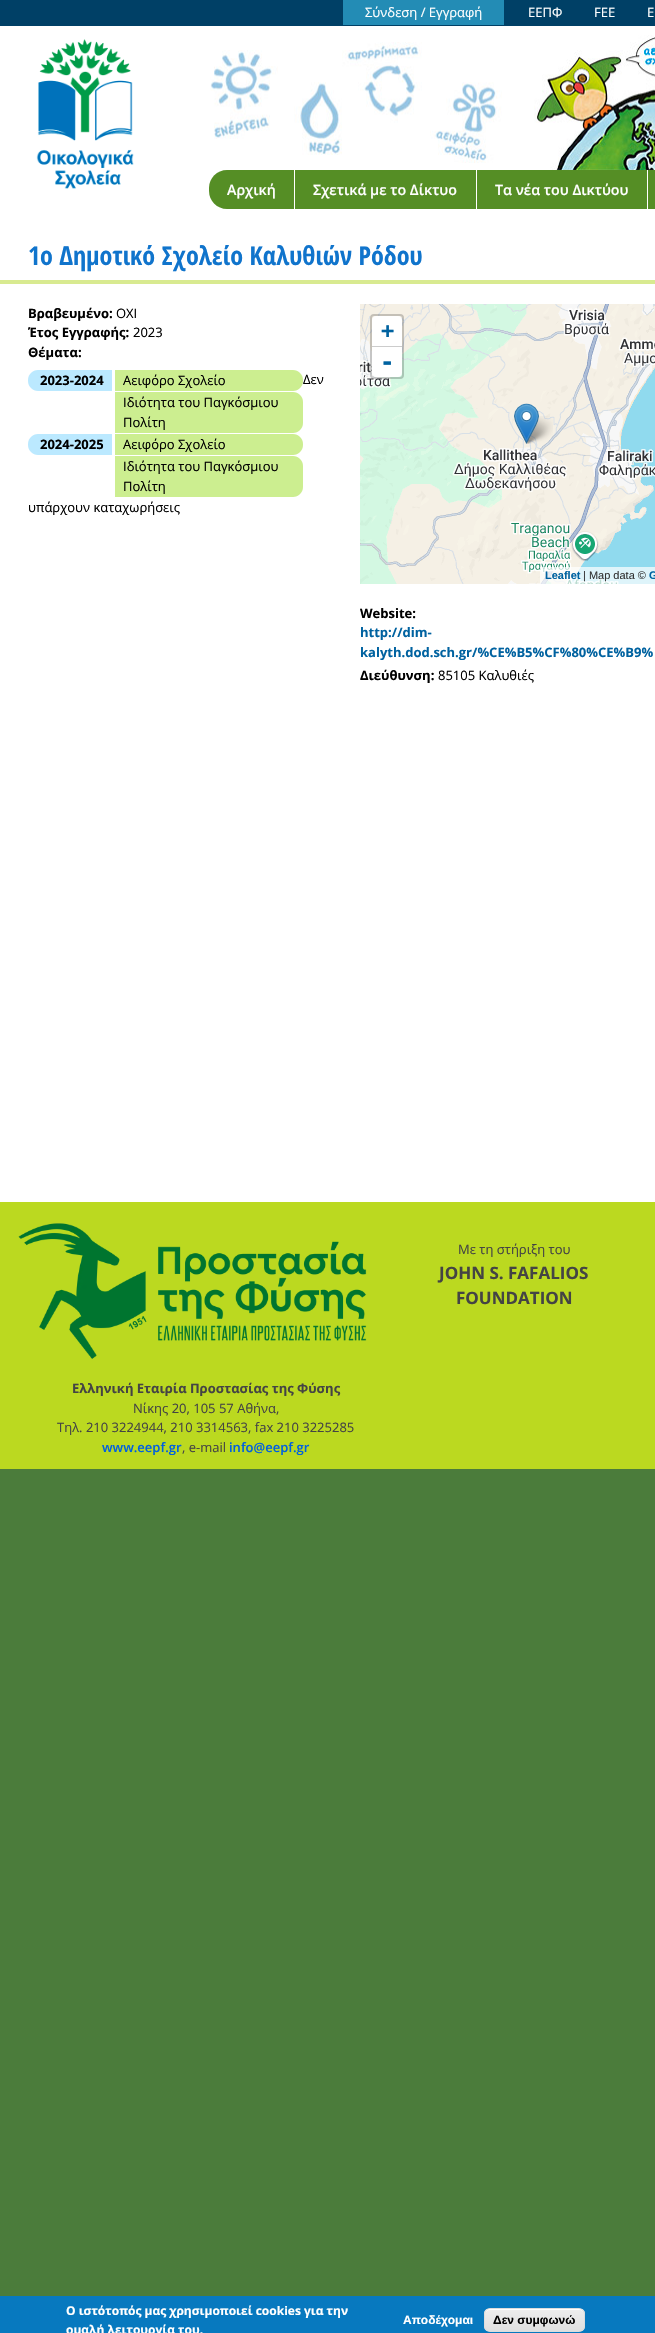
void draw(SkCanvas* canvas) {
	SkPaint fill;
	fill.setAntiAlias(true);
	auto makeFont = [&](const char* family, int weight, float size, bool italic = false) {
		SkFontStyle style(weight, SkFontStyle::kNormal_Width,
			italic ? SkFontStyle::kItalic_Slant : SkFontStyle::kUpright_Slant);
		SkFont result(fontMgr->matchFamilyStyle(family, style), size);
		result.setSubpixel(true);
		return result;
	};
	auto text = [&](const char* s, float x, float y, const SkFont& font) {
		canvas->drawString(s, x, y, font, fill);
	};
	auto box = [&](float l, float t, float r, float b) {
		canvas->drawRect(SkRect::MakeLTRB(l, t, r, b), fill);
	};
	auto picture = [&](const char* path, float l, float t, float r, float b) {
		auto image = SkImages::DeferredFromEncodedData(SkData::MakeFromFileName(path));
		canvas->drawImageRect(image, SkRect::MakeLTRB(l, t, r, b), SkSamplingOptions());
	};
	canvas->clear(0xFF4B7C3B);
	fill.setColor(0xFF004066);
	box(0, 0, 655, 26);
	fill.setColor(0xFF238CB5);
	box(343, 0, 504, 25);
	fill.setColor(0xFFFFFFFF);
	box(0, 26, 655, 1202);
	picture("image0.png", 210, 35, 655, 171);
	picture("image1.png", 36, 39, 134, 189);
	fill.setColor(0xFF558E25);
	canvas->drawPath(SkPathBuilder().moveTo(227, 170).lineTo(294, 170).lineTo(294, 209).lineTo(227, 209).cubicTo(217, 209, 209, 201, 209, 191).lineTo(209, 188).cubicTo(209, 178, 217, 170, 227, 170).close().detach(), fill);
	box(295, 170, 476, 209);
	box(477, 170, 647, 209);
	box(648, 170, 655, 209);
	fill.setColor(0xFFD8EA90);
	box(0, 280, 655, 284);
	fill.setColor(0xFFBBE9FF);
	canvas->drawPath(SkPathBuilder().moveTo(38, 370).lineTo(112, 370).lineTo(112, 391).lineTo(38, 391).cubicTo(32.5f, 391, 28, 386.5f, 28, 381).lineTo(28, 380).cubicTo(28, 374.5f, 32.5f, 370, 38, 370).close().detach(), fill);
	fill.setColor(0xFFCCEE90);
	canvas->drawPath(SkPathBuilder().moveTo(115, 370).lineTo(293, 370).cubicTo(298.5f, 370, 303, 374.5f, 303, 380).lineTo(303, 381).cubicTo(303, 386.5f, 298.5f, 391, 293, 391).lineTo(115, 391).close().detach(), fill);
	canvas->drawPath(SkPathBuilder().moveTo(115, 392).lineTo(293, 392).cubicTo(298.5f, 392, 303, 396.5f, 303, 402).lineTo(303, 423).cubicTo(303, 428.5f, 298.5f, 433, 293, 433).lineTo(115, 433).close().detach(), fill);
	fill.setColor(0xFFBBE9FF);
	canvas->drawPath(SkPathBuilder().moveTo(38, 434).lineTo(112, 434).lineTo(112, 455).lineTo(38, 455).cubicTo(32.5f, 455, 28, 450.5f, 28, 445).lineTo(28, 444).cubicTo(28, 438.5f, 32.5f, 434, 38, 434).close().detach(), fill);
	fill.setColor(0xFFCCEE90);
	canvas->drawPath(SkPathBuilder().moveTo(115, 434).lineTo(293, 434).cubicTo(298.5f, 434, 303, 438.5f, 303, 444).lineTo(303, 445).cubicTo(303, 450.5f, 298.5f, 455, 293, 455).lineTo(115, 455).close().detach(), fill);
	canvas->drawPath(SkPathBuilder().moveTo(115, 456).lineTo(293, 456).cubicTo(298.5f, 456, 303, 460.5f, 303, 466).lineTo(303, 487).cubicTo(303, 492.5f, 298.5f, 497, 293, 497).lineTo(115, 497).close().detach(), fill);
	picture("image2.png", 360, 304, 389, 535);
	picture("image3.png", 389, 304, 645, 535);
	picture("image4.png", 645, 304, 655, 535);
	picture("image5.png", 360, 535, 389, 584);
	picture("image6.png", 389, 535, 645, 584);
	fill.setColor(0xFF90DAEE);
	box(645, 535, 655, 584);
	picture("image8.png", 524, 416, 553, 444);
	picture("image7.png", 514, 403, 539, 444);
	fill.setStyle(SkPaint::kStroke_Style);
	fill.setStrokeWidth(2);
	fill.setColor(0x33000000);
	canvas->drawRoundRect(SkRect::MakeLTRB(371, 315, 403, 378), 3, 3, fill);
	fill.setStyle(SkPaint::kFill_Style);
	fill.setColor(0xFFFFFFFF);
	canvas->drawPath(SkPathBuilder().moveTo(376, 316).lineTo(398, 316).cubicTo(400, 316, 402, 318, 402, 320).lineTo(402, 347).lineTo(372, 347).lineTo(372, 320).cubicTo(372, 318, 374, 316, 376, 316).close().detach(), fill);
	fill.setColor(0xFFCCCCCC);
	box(372, 346, 402, 347);
	fill.setColor(0xFFFFFFFF);
	canvas->drawPath(SkPathBuilder().moveTo(372, 347).lineTo(402, 347).lineTo(402, 373).cubicTo(402, 375, 400, 377, 398, 377).lineTo(376, 377).cubicTo(374, 377, 372, 375, 372, 373).close().detach(), fill);
	fill.setColor(0xB3FFFFFF);
	box(540, 567, 655, 584);
	fill.setColor(0xFFBBD920);
	box(0, 1202, 655, 1469);
	picture("image9.png", 18, 1223, 367, 1359);
	fill.setColor(0xFF0779BF);
	box(0, 2296, 655, 2333);
	canvas->save();
	canvas->clipPath(SkPathBuilder().moveTo(490, 2308).lineTo(579, 2308).cubicTo(582.5f, 2308, 585, 2310.5f, 585, 2314).lineTo(585, 2326).cubicTo(585, 2329.5f, 582.5f, 2332, 579, 2332).lineTo(490, 2332).cubicTo(486.5f, 2332, 484, 2329.5f, 484, 2326).lineTo(484, 2314).cubicTo(484, 2310.5f, 486.5f, 2308, 490, 2308).close().detach(), true);
	{
		const SkColor colors[] = {0xFFEDEDED, 0xFFDFDFDF};
		const float stops[] = {0.05f, 1};
		const SkPoint ends[] = {{535, 2309}, {535, 2331}};
		fill.setShader(SkGradientShader::MakeLinear(ends, colors, stops, 2, SkTileMode::kClamp));
		fill.setAlpha(255);
	}
	box(484, 2309, 585, 2331);
	canvas->restore();
	fill.setShader(nullptr);
	fill.setColor(0xFFFFFFFF);
	canvas->drawPath(SkPathBuilder().moveTo(490, 2310).lineTo(579, 2310).cubicTo(582, 2310, 584, 2312, 584, 2315).cubicTo(584, 2305, 570, 2309, 564, 2309).lineTo(505, 2309).cubicTo(499, 2309, 485, 2305, 485, 2315).cubicTo(485, 2312, 487, 2310, 490, 2310).close().detach(), fill);
	fill.setStyle(SkPaint::kStroke_Style);
	fill.setStrokeWidth(1);
	fill.setColor(0xFFDCDCDC);
	canvas->drawRoundRect(SkRect::MakeLTRB(484.5f, 2308.5f, 584.5f, 2331.5f), 5.5f, 5.5f, fill);
	auto font1 = makeFont("Open Sans", 400, 13);
	fill.setStyle(SkPaint::kFill_Style);
	fill.setColor(0xFFFFFFFF);
	text("Σύνδεση / Εγγραφή", 365, 17, font1);
	text("ΕΕΠΦ", 528, 17, font1);
	text("FEE", 594, 17, font1);
	text("Ε", 647, 17, font1);
	auto font2 = makeFont("Open Sans", 600, 14.25f);
	text("Αρχική", 227, 195, font2);
	text("Σχετικά με το Δίκτυο", 313, 195, font2);
	text("Τα νέα του Δικτύου", 495, 195, font2);
	auto font3 = makeFont("Open Sans Condensed", 700, 26);
	fill.setColor(0xFF1074CC);
	text("1ο Δημοτικό Σχολείο Καλυθιών Ρόδου", 28, 265, font3);
	auto font4 = makeFont("Open Sans", 700, 13);
	fill.setColor(0xFF000000);
	text("Βραβευμένο:", 28, 318, font4);
	text("ΟΧΙ", 116, 318, font1);
	text("Έτος Εγγραφής:", 28, 337, font4);
	text("2023", 133, 337, font1);
	text("Θέματα:", 28, 357, font4);
	text("2023-2024", 40, 385, font4);
	text("Αειφόρο Σχολείο", 123, 385, font1);
	text("Ιδιότητα του Παγκόσμιου", 123, 407, font1);
	text("Πολίτη", 123, 427, font1);
	text("2024-2025", 40, 449, font4);
	text("Αειφόρο Σχολείο", 123, 449, font1);
	text("Ιδιότητα του Παγκόσμιου", 123, 471, font1);
	text("Πολίτη", 123, 491, font1);
	text("Δεν", 303, 384, font1);
	text("υπάρχουν καταχωρήσεις", 28, 512, font1);
	auto font5 = makeFont("DejaVu Sans Mono", 700, 22);
	fill.setColor(0xFF0062A0);
	text("+", 381, 338, font5);
	auto font6 = makeFont("DejaVu Sans Mono", 700, 24);
	text("-", 380, 370, font6);
	auto font7 = makeFont("Liberation Sans", 700, 11);
	text("Leaflet", 545, 579, font7);
	auto font8 = makeFont("Liberation Sans", 400, 11);
	fill.setColor(0xFF333333);
	text("| Map data ©", 583, 579, font8);
	fill.setColor(0xFF0062A0);
	text("G", 649, 579, font7);
	fill.setColor(0xFF000000);
	text("Website:", 360, 618, font4);
	fill.setColor(0xFF0062A0);
	text("http://dim-", 360, 637, font4);
	text("kalyth.dod.sch.gr/%CE%B5%CF%80%CE%B9%", 360, 657, font4);
	fill.setColor(0xFF000000);
	text("Διεύθυνση:", 360, 680, font4);
	text("85105 Καλυθιές", 438, 680, font1);
	fill.setColor(0xFF444444);
	text("Με τη στήριξη του", 458, 1254, font1);
	auto font9 = makeFont("Open Sans", 700, 17);
	text("JOHN S. FAFALIOS", 439, 1279, font9);
	text("FOUNDATION", 456, 1304, font9);
	text("Ελληνική Εταιρία Προστασίας της Φύσης", 72, 1393, font4);
	text("Νίκης 20, 105 57 Αθήνα,", 133, 1413, font1);
	text("Τηλ. 210 3224944, 210 3314563, fax 210 3225285", 57, 1432, font1);
	auto font10 = makeFont("Open Sans", 600, 13);
	fill.setColor(0xFF0060DF);
	text("www.eepf.gr", 102, 1452, font10);
	fill.setColor(0xFF444444);
	text(", e-mail", 182, 1452, font1);
	fill.setColor(0xFF0060DF);
	text("info@eepf.gr", 229, 1452, font10);
	auto font11 = makeFont("Open Sans", 700, 12);
	fill.setColor(0xFFFFFFFF);
	text("Ο ιστότοπός μας χρησιμοποιεί cookies για την", 66, 2315, font11);
	text("ομαλή λειτουργία του.", 66, 2334, font11);
	auto font12 = makeFont("Liberation Sans", 700, 12);
	text("Αποδέχομαι", 403, 2324, font12);
	fill.setColor(0xFF000000);
	text("Δεν συμφωνώ", 493, 2324, font12);
}
